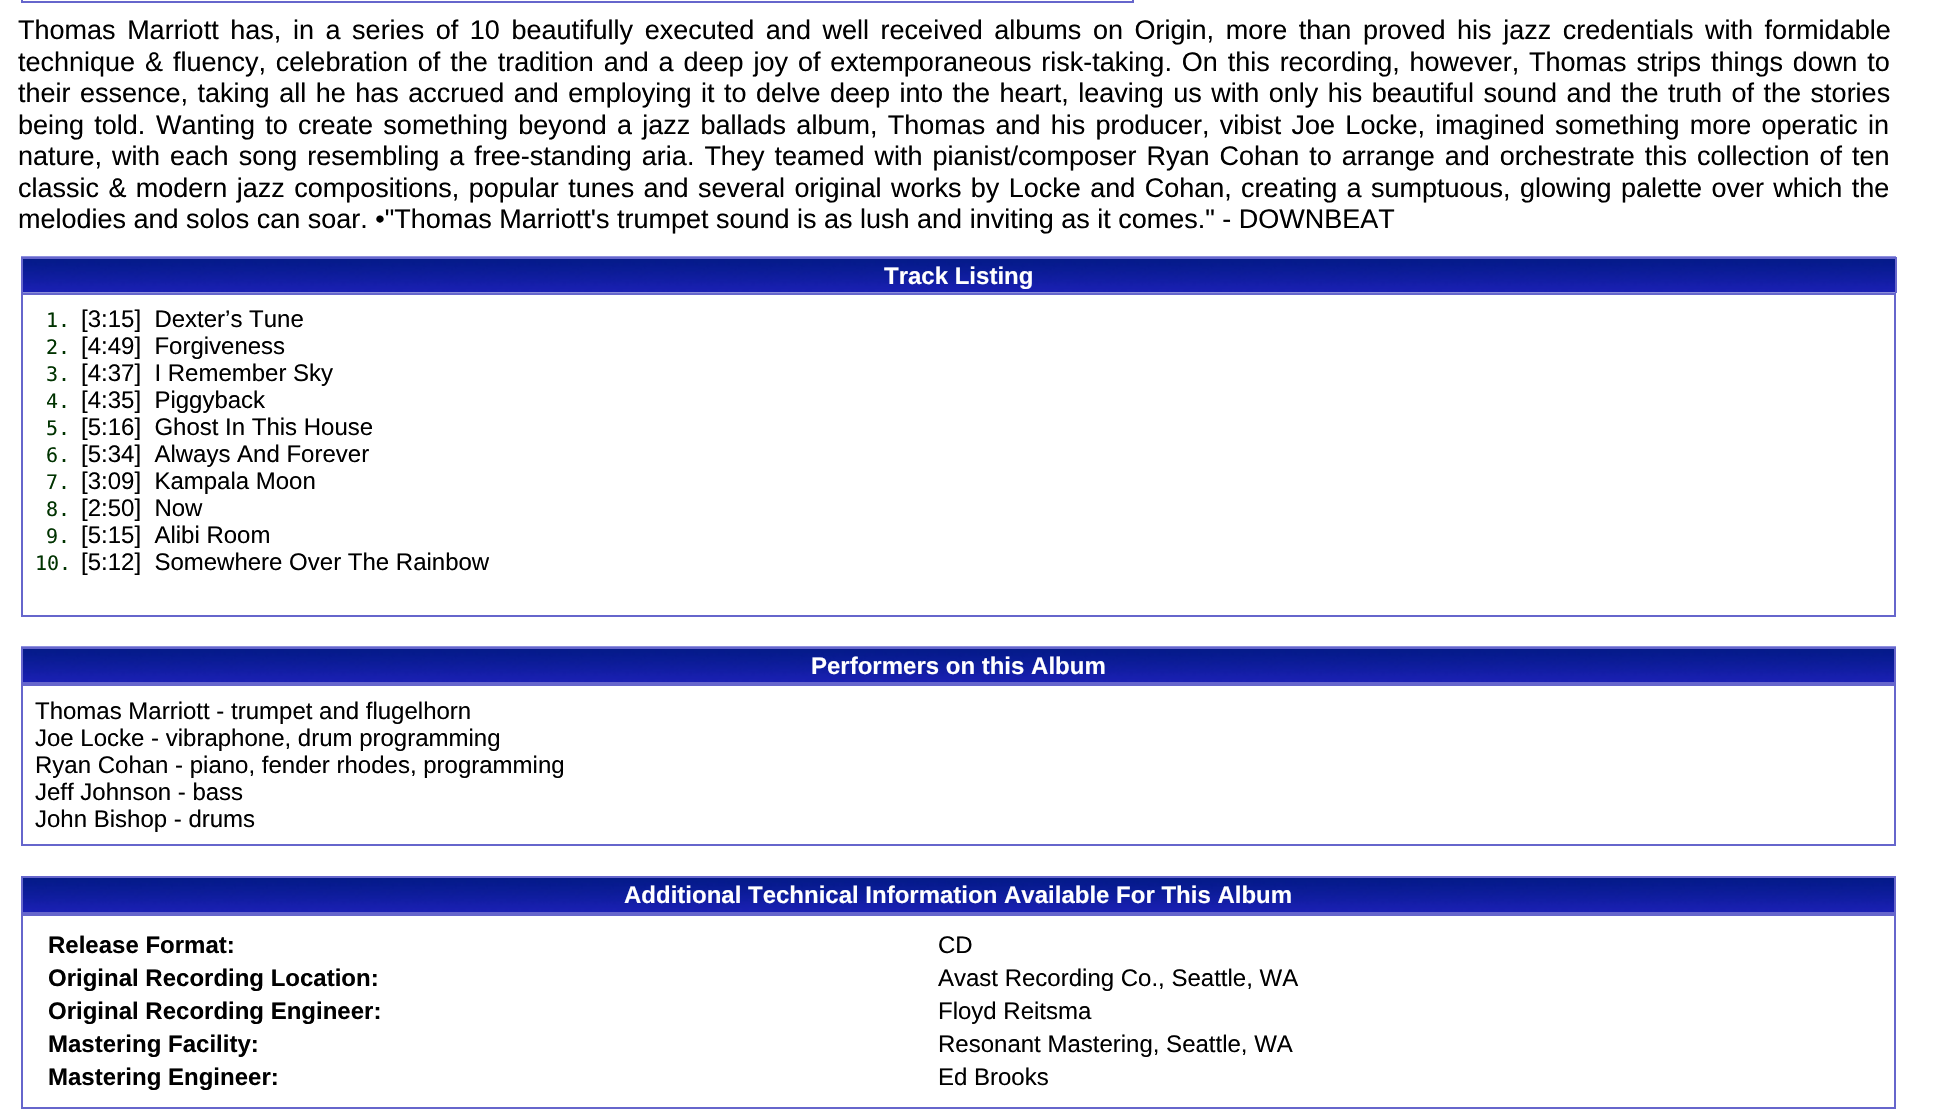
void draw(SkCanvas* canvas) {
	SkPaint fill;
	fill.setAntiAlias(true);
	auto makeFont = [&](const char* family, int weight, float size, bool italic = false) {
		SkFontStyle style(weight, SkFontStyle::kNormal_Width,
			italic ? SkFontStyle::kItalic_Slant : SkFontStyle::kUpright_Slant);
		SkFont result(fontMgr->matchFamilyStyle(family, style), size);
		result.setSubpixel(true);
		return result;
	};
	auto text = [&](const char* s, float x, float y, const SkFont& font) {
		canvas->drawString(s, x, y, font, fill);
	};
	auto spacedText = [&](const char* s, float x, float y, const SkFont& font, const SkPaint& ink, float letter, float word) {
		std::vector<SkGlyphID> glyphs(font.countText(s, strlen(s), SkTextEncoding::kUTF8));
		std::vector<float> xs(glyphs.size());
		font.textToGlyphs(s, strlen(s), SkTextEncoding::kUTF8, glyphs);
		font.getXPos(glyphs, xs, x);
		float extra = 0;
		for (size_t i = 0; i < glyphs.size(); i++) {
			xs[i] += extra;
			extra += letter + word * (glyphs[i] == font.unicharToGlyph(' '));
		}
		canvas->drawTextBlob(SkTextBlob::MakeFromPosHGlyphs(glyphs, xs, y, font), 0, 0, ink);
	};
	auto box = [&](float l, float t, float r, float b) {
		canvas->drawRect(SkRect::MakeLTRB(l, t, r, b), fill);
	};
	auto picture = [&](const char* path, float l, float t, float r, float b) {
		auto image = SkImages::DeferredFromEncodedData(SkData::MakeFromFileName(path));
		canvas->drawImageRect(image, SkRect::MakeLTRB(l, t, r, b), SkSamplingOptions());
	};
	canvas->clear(0xFFFFFFFF);
	fill.setStyle(SkPaint::kStroke_Style);
	fill.setStrokeWidth(2);
	fill.setColor(0xFF6666CC);
	canvas->drawRect(SkRect::MakeLTRB(22, -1, 1133, 2), fill);
	picture("image0.png", 21, 256, 1896, 293);
	fill.setStyle(SkPaint::kFill_Style);
	box(21, 257, 1896, 259);
	box(1895, 257, 1897, 293);
	box(21, 257, 23, 293);
	fill.setStyle(SkPaint::kStroke_Style);
	canvas->drawRect(SkRect::MakeLTRB(22, 294, 1895, 616), fill);
	picture("image1.png", 21, 646, 1896, 682);
	canvas->drawRect(SkRect::MakeLTRB(22, 648, 1895, 683), fill);
	canvas->drawRect(SkRect::MakeLTRB(22, 685, 1895, 845), fill);
	picture("image2.png", 23, 878, 1894, 912);
	canvas->drawRect(SkRect::MakeLTRB(22, 877, 1895, 913), fill);
	canvas->drawRect(SkRect::MakeLTRB(22, 915, 1895, 1108), fill);
	auto font1 = makeFont("Liberation Sans", 400, 27);
	fill.setStyle(SkPaint::kFill_Style);
	fill.setColor(0xFF000000);
	spacedText("Thomas Marriott has, in a series of 10 beautifully executed and well received albums on Origin, more than proved his jazz credentials with formidable", 18, 39, font1, fill, 0, 4.1f);
	spacedText("technique & fluency, celebration of the tradition and a deep joy of extemporaneous risk-taking. On this recording, however, Thomas strips things down to", 18, 71, font1, fill, 0, 2.4f);
	spacedText("their essence, taking all he has accrued and employing it to delve deep into the heart, leaving us with only his beautiful sound and the truth of the stories", 18, 102, font1, fill, 0, 2);
	spacedText("being told.", 18, 134, font1, fill, 0, 2.75f);
	spacedText("Wanting to create something beyond a jazz ballads album, Thomas and his producer, vibist Joe Locke, imagined something more operatic in", 156, 134, font1, fill, 0, 2.75f);
	spacedText("nature, with each song resembling a free-standing aria. They teamed with pianist/composer Ryan Cohan to arrange and orchestrate this collection of ten", 18, 165, font1, fill, 0, 2.5f);
	spacedText("classic & modern jazz compositions, popular tunes and several original works by Locke and Cohan, creating a sumptuous, glowing palette over which the", 18, 197, font1, fill, 0, 1.9f);
	text("melodies and solos can soar. •\"Thomas Marriott's trumpet sound is as lush and inviting as it comes.\" - DOWNBEAT", 18, 228, font1);
	auto font2 = makeFont("Liberation Sans", 700, 24);
	fill.setColor(0xFFFFFFFF);
	text("Track Listing", 884, 284, font2);
	auto font3 = makeFont("DejaVu Sans Mono", 400, 20);
	fill.setColor(0xFF003300);
	text("1.", 46, 327, font3);
	auto font4 = makeFont("Liberation Sans", 400, 24);
	fill.setColor(0xFF000000);
	text("[3:15]  Dexter’s Tune", 81, 327, font4);
	fill.setColor(0xFF003300);
	text("2.", 46, 354, font3);
	fill.setColor(0xFF000000);
	text("[4:49]  Forgiveness", 81, 354, font4);
	fill.setColor(0xFF003300);
	text("3.", 46, 381, font3);
	fill.setColor(0xFF000000);
	text("[4:37]  I Remember Sky", 81, 381, font4);
	fill.setColor(0xFF003300);
	text("4.", 46, 408, font3);
	fill.setColor(0xFF000000);
	text("[4:35]  Piggyback", 81, 408, font4);
	fill.setColor(0xFF003300);
	text("5.", 46, 435, font3);
	fill.setColor(0xFF000000);
	text("[5:16]  Ghost In This House", 81, 435, font4);
	fill.setColor(0xFF003300);
	text("6.", 46, 462, font3);
	fill.setColor(0xFF000000);
	text("[5:34]  Always And Forever", 81, 462, font4);
	fill.setColor(0xFF003300);
	text("7.", 46, 489, font3);
	fill.setColor(0xFF000000);
	text("[3:09]  Kampala Moon", 81, 489, font4);
	fill.setColor(0xFF003300);
	text("8.", 46, 516, font3);
	fill.setColor(0xFF000000);
	text("[2:50]  Now", 81, 516, font4);
	fill.setColor(0xFF003300);
	text("9.", 46, 543, font3);
	fill.setColor(0xFF000000);
	text("[5:15]  Alibi Room", 81, 543, font4);
	fill.setColor(0xFF003300);
	text("10.", 35, 570, font3);
	fill.setColor(0xFF000000);
	text("[5:12]  Somewhere Over The Rainbow", 81, 570, font4);
	fill.setColor(0xFFFFFFFF);
	text("Performers on this Album", 811, 674, font2);
	fill.setColor(0xFF000000);
	text("Thomas Marriott - trumpet and flugelhorn", 35, 719, font4);
	text("Joe Locke - vibraphone, drum programming", 35, 746, font4);
	text("Ryan Cohan - piano, fender rhodes, programming", 35, 773, font4);
	text("Jeff Johnson - bass", 35, 800, font4);
	text("John Bishop - drums", 35, 827, font4);
	fill.setColor(0xFFFFFFFF);
	text("Additional Technical Information Available For This Album", 624, 903, font2);
	fill.setColor(0xFF000000);
	text("Release Format:", 48, 953, font2);
	text("CD", 938, 953, font4);
	text("Original Recording Location:", 48, 986, font2);
	text("Avast Recording Co., Seattle, WA", 938, 986, font4);
	text("Original Recording Engineer:", 48, 1019, font2);
	text("Floyd Reitsma", 938, 1019, font4);
	text("Mastering Facility:", 48, 1052, font2);
	text("Resonant Mastering, Seattle, WA", 938, 1052, font4);
	text("Mastering Engineer:", 48, 1085, font2);
	text("Ed Brooks", 938, 1085, font4);
}
